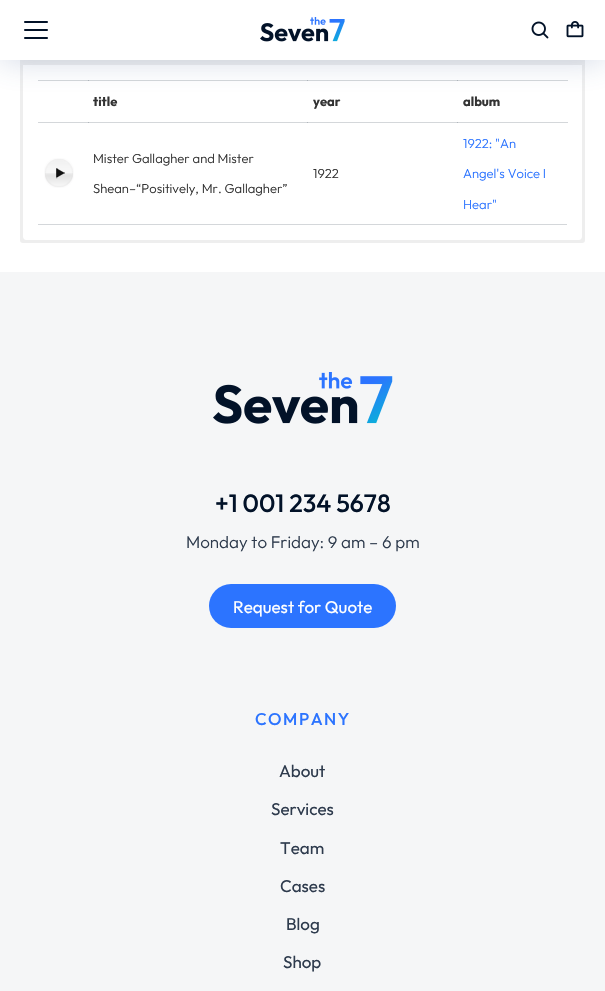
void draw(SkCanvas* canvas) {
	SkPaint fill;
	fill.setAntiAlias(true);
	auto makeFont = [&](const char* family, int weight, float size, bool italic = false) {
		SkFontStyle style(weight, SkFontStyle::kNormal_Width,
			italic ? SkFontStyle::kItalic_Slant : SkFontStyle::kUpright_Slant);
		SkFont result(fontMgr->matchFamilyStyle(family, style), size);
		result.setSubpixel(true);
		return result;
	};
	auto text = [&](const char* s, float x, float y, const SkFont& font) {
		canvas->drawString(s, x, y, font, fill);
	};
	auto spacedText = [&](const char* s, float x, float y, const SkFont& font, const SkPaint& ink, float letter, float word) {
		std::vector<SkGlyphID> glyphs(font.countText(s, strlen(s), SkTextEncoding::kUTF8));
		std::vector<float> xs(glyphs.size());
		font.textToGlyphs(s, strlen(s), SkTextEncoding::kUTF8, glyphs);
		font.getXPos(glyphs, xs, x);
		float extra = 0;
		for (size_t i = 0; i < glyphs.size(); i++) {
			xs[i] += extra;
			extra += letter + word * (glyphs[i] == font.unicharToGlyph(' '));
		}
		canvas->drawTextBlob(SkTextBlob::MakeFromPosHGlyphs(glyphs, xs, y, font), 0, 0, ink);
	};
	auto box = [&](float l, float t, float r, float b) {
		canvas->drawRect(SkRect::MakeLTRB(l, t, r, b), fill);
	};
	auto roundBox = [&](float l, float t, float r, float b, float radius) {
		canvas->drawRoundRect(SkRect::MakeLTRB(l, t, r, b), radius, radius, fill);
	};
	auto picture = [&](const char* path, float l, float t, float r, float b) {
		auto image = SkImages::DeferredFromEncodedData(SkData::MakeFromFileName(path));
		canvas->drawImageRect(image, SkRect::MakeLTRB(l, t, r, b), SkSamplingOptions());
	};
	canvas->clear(0xFFFFFFFF);
	fill.setColor(0xFFEEEEEE);
	roundBox(20, -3, 585, 243, 3);
	fill.setColor(0xFFFFFFFF);
	canvas->drawPath(SkPathBuilder().moveTo(23, 65).lineTo(582, 65).lineTo(582, 237).cubicTo(582, 238.5f, 580.5f, 240, 579, 240).lineTo(26, 240).cubicTo(24.5f, 240, 23, 238.5f, 23, 237).close().detach(), fill);
	fill.setColor(0xFFD4D7DA);
	box(38, 80, 568, 81);
	fill.setColor(0xFFB0B6BC);
	box(88, 80, 89, 81);
	box(307, 80, 308, 81);
	box(457, 80, 458, 81);
	fill.setColor(0x40405C92);
	fill.setMaskFilter(SkMaskFilter::MakeBlur(kNormal_SkBlurStyle, 16.5f));
	canvas->drawRect(SkRect::MakeLTRB(0, 0, 605, 60), fill);
	fill.setMaskFilter(nullptr);
	fill.setColor(0xFFFFFFFF);
	box(0, 0, 605, 60);
	picture("image0.png", 24, 21, 48, 39);
	picture("image1.png", 260, 17, 345, 42);
	picture("image2.png", 531, 21, 549, 39);
	picture("image3.png", 566, 21, 584, 38);
	fill.setColor(0xFFD4D7DA);
	box(38, 122, 568, 123);
	fill.setColor(0xFFB0B6BC);
	box(88, 122, 89, 123);
	box(307, 122, 308, 123);
	fill.setColor(0xFFD4D7DA);
	box(38, 224, 567, 225);
	picture("image4.png", 44, 158, 74, 188);
	fill.setColor(0xFFB0B6BC);
	box(457, 122, 458, 123);
	fill.setColor(0xFFF5F6F7);
	box(0, 272, 605, 991);
	picture("image5.png", 213, 372, 393, 424);
	fill.setColor(0xFF2C74FF);
	roundBox(209, 584, 396, 628, 22);
	auto font1 = makeFont("Outfit", 100, 13);
	fill.setColor(0xFF333333);
	text("title", 93, 106, font1);
	text("year", 313, 106, font1);
	text("album", 463, 106, font1);
	auto font2 = makeFont("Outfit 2", 100, 13);
	text("Mister Gallagher and Mister", 93, 163, font2);
	text("Shean–“Positively, Mr. Gallagher”", 93, 193, font2);
	text("1922", 313, 178, font2);
	fill.setColor(0xFF2C74FF);
	text("1922: \"An", 463, 148, font2);
	text("Angel's Voice I", 463, 178, font2);
	text("Hear\"", 463, 209, font2);
	auto font3 = makeFont("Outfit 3", 100, 25);
	fill.setColor(0xFF021228);
	text("+1 001 234 5678", 215, 512, font3);
	auto font4 = makeFont("Outfit 2", 100, 17);
	fill.setColor(0xFF2E3B4D);
	text("Monday to Friday: 9 am – 6 pm", 186, 548, font4);
	auto font5 = makeFont("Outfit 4", 100, 17);
	fill.setColor(0xFFFFFFFF);
	text("Request for Quote", 233, 613, font5);
	auto font6 = makeFont("Outfit 3", 100, 17);
	fill.setColor(0xFF2C74FF);
	spacedText("COMPANY", 255, 725, font6, fill, 1.5f, 0);
	fill.setColor(0xFF2E3B4D);
	text("About", 279, 777, font5);
	text("Services", 271, 815, font5);
	text("Team", 280, 854, font5);
	text("Cases", 280, 892, font5);
	text("Blog", 286, 930, font5);
	text("Shop", 283, 968, font5);
}
